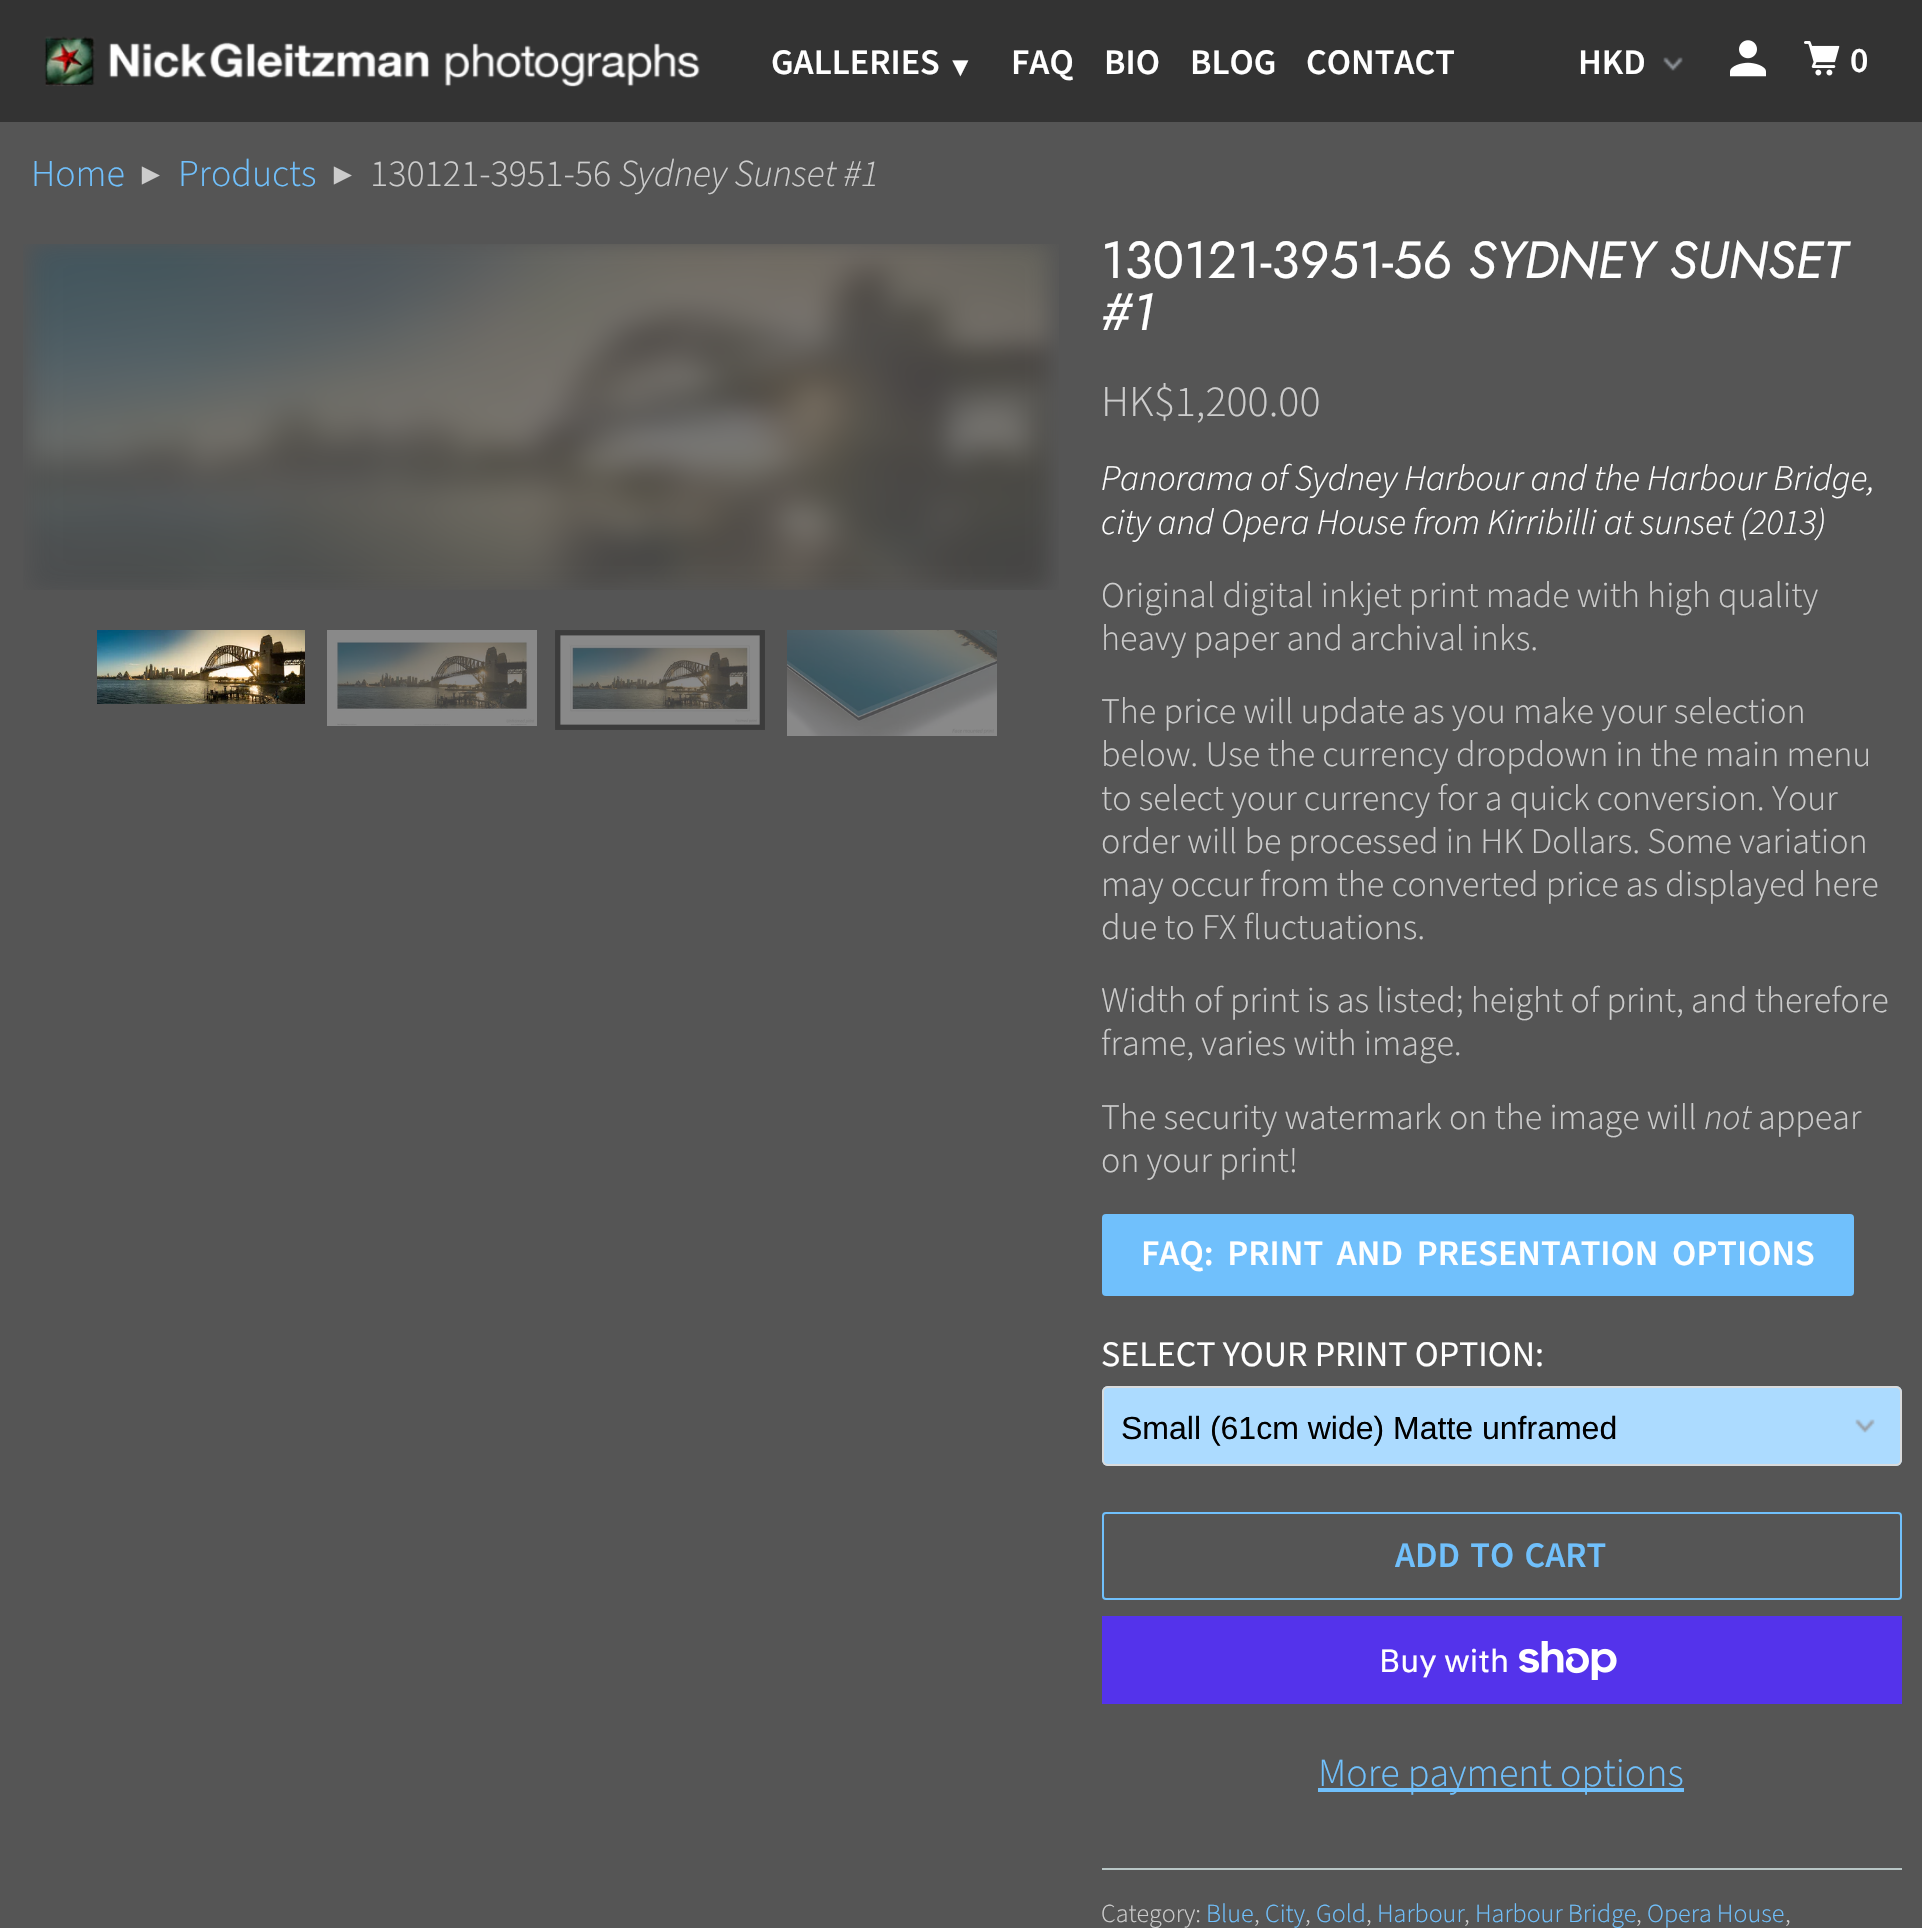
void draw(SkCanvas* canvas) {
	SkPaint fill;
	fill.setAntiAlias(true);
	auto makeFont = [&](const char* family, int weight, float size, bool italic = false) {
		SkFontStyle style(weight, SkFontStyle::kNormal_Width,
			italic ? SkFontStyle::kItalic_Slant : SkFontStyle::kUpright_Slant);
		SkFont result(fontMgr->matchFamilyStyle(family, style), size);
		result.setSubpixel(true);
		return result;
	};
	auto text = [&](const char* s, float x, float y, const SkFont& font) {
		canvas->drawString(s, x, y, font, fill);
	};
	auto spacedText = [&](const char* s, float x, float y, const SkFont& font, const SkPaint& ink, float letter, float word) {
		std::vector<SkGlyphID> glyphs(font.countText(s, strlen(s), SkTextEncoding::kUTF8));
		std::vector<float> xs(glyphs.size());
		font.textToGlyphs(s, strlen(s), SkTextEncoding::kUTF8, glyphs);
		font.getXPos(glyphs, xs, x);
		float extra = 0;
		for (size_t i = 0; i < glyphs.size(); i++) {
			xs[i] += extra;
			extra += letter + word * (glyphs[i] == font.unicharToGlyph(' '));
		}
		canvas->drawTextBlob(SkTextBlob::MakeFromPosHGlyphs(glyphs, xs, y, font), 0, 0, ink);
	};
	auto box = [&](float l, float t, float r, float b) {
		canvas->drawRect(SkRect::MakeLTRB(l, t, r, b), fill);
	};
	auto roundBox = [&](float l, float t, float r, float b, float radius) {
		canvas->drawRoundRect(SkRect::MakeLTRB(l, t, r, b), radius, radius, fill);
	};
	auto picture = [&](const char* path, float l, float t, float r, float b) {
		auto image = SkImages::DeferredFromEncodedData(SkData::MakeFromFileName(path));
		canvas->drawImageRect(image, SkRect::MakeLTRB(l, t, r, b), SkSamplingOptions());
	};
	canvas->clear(0xFF555555);
	fill.setColor(0xFF333333);
	box(0, 0, 1922, 122);
	picture("image0.png", 44, 36, 700, 87);
	picture("image1.png", 1663, 57, 1683, 71);
	picture("image2.png", 1730, 40, 1766, 77);
	picture("image3.png", 1804, 41, 1840, 76);
	picture("image4.png", 23, 244, 1059, 590);
	picture("image5.png", 97, 630, 305, 704);
	picture("image6.png", 327, 630, 537, 726);
	picture("image7.png", 555, 630, 765, 730);
	picture("image8.png", 787, 630, 997, 736);
	fill.setColor(0xFF70C0FC);
	roundBox(1102, 1214, 1854, 1296, 4);
	fill.setColor(0xFFACDBFF);
	roundBox(1102, 1386, 1902, 1466, 6);
	picture("image9.png", 1855, 1419, 1875, 1433);
	fill.setStyle(SkPaint::kStroke_Style);
	fill.setStrokeWidth(2);
	fill.setColor(0xFFD9DBDC);
	canvas->drawRoundRect(SkRect::MakeLTRB(1103, 1387, 1901, 1465), 5, 5, fill);
	fill.setColor(0xFF70C0FC);
	canvas->drawRoundRect(SkRect::MakeLTRB(1103, 1513, 1901, 1599), 3, 3, fill);
	fill.setStyle(SkPaint::kFill_Style);
	fill.setColor(0xFF5433EB);
	box(1102, 1616, 1902, 1704);
	picture("image10.png", 1519, 1641, 1617, 1680);
	fill.setColor(0xFF70C0FC);
	box(1318, 1788, 1684, 1792);
	fill.setColor(0xFFB8C6C6);
	box(1102, 1868, 1902, 1870);
	auto font1 = makeFont("Source Sans Pro", 600, 36);
	fill.setColor(0xFFFFFFFF);
	text("GALLERIES", 771, 74, font1);
	auto font2 = makeFont("Liberation Serif", 400, 27);
	text("▼", 947, 76, font2);
	text("FAQ", 1011, 74, font1);
	text("BIO", 1104, 74, font1);
	text("BLOG", 1190, 74, font1);
	text("CONTACT", 1306, 74, font1);
	text("HKD", 1578, 74, font1);
	text("0", 1850, 72, font1);
	auto font3 = makeFont("Source Sans Pro", 300, 38);
	fill.setColor(0xFF70C0FC);
	text("Home", 31, 186, font3);
	auto font4 = makeFont("Liberation Serif", 400, 30);
	fill.setColor(0xFFCCCCCC);
	text("►", 136, 184, font4);
	fill.setColor(0xFF70C0FC);
	text("Products", 178, 186, font3);
	fill.setColor(0xFFCCCCCC);
	text("►", 328, 184, font4);
	text("130121-3951-56", 370, 186, font3);
	auto font5 = makeFont("Source Sans Pro", 300, 38, true);
	text("Sydney Sunset #1", 619, 186, font5);
	auto font6 = makeFont("Jost", 400, 52);
	fill.setColor(0xFFFFFFFF);
	text("130121-3951-56", 1101, 278, font6);
	auto font7 = makeFont("Jost", 400, 52, true);
	text("SYDNEY SUNSET", 1468, 278, font7);
	text("#1", 1101, 330, font7);
	auto font8 = makeFont("Source Sans Pro", 300, 44);
	fill.setColor(0xFFCCCCCC);
	text("HK$1,200.00", 1101, 416, font8);
	auto font9 = makeFont("Source Sans Pro", 300, 36, true);
	fill.setColor(0xFFFFFFFF);
	text("Panorama of Sydney Harbour and the Harbour Bridge,", 1101, 490, font9);
	text("city and Opera House from Kirribilli at sunset (2013)", 1101, 534, font9);
	auto font10 = makeFont("Source Sans Pro", 300, 36);
	fill.setColor(0xFFCCCCCC);
	text("Original digital inkjet print made with high quality", 1101, 607, font10);
	text("heavy paper and archival inks.", 1101, 650, font10);
	text("The price will update as you make your selection", 1101, 723, font10);
	text("below. Use the currency dropdown in the main menu", 1101, 766, font10);
	text("to select your currency for a quick conversion. Your", 1101, 810, font10);
	text("order will be processed in HK Dollars. Some variation", 1101, 853, font10);
	text("may occur from the converted price as displayed here", 1101, 896, font10);
	text("due to FX fluctuations.", 1101, 939, font10);
	text("Width of print is as listed; height of print, and therefore", 1101, 1012, font10);
	text("frame, varies with image.", 1101, 1055, font10);
	text("The security watermark on the image will", 1101, 1129, font10);
	text("not", 1704, 1129, font9);
	text("appear", 1758, 1129, font10);
	text("on your print!", 1101, 1172, font10);
	fill.setColor(0xFFFFFFFF);
	spacedText("FAQ: PRINT AND PRESENTATION OPTIONS", 1141, 1265, font1, fill, 0, 6.5f);
	auto font11 = makeFont("Source Sans Pro", 400, 36);
	text("SELECT YOUR PRINT OPTION:", 1101, 1366, font11);
	auto font12 = makeFont("Liberation Sans", 400, 32);
	fill.setColor(0xFF000000);
	text("Small (61cm wide) Matte unframed", 1121, 1439, font12);
	fill.setColor(0xFF70C0FC);
	spacedText("ADD TO CART", 1395, 1567, font1, fill, 0, 3);
	auto font13 = makeFont("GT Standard", 400, 32);
	fill.setColor(0xFFFFFFFF);
	text("Buy with", 1379, 1672, font13);
	auto font14 = makeFont("Source Sans Pro", 300, 40);
	fill.setColor(0xFF70C0FC);
	text("More payment options", 1318, 1786, font14);
	auto font15 = makeFont("Source Sans Pro", 300, 26);
	fill.setColor(0xFFCCCCCC);
	text("Category:", 1101, 1922, font15);
	fill.setColor(0xFF70C0FC);
	text("Blue", 1206, 1922, font15);
	fill.setColor(0xFFCCCCCC);
	text(",", 1254, 1922, font15);
	fill.setColor(0xFF70C0FC);
	text("City", 1265, 1922, font15);
	fill.setColor(0xFFCCCCCC);
	text(",", 1305, 1922, font15);
	fill.setColor(0xFF70C0FC);
	text("Gold", 1316, 1922, font15);
	fill.setColor(0xFFCCCCCC);
	text(",", 1366, 1922, font15);
	fill.setColor(0xFF70C0FC);
	text("Harbour", 1377, 1922, font15);
	fill.setColor(0xFFCCCCCC);
	text(",", 1464, 1922, font15);
	fill.setColor(0xFF70C0FC);
	text("Harbour Bridge", 1475, 1922, font15);
	fill.setColor(0xFFCCCCCC);
	text(",", 1636, 1922, font15);
	fill.setColor(0xFF70C0FC);
	text("Opera House", 1647, 1922, font15);
	fill.setColor(0xFFCCCCCC);
	text(",", 1785, 1922, font15);
}
